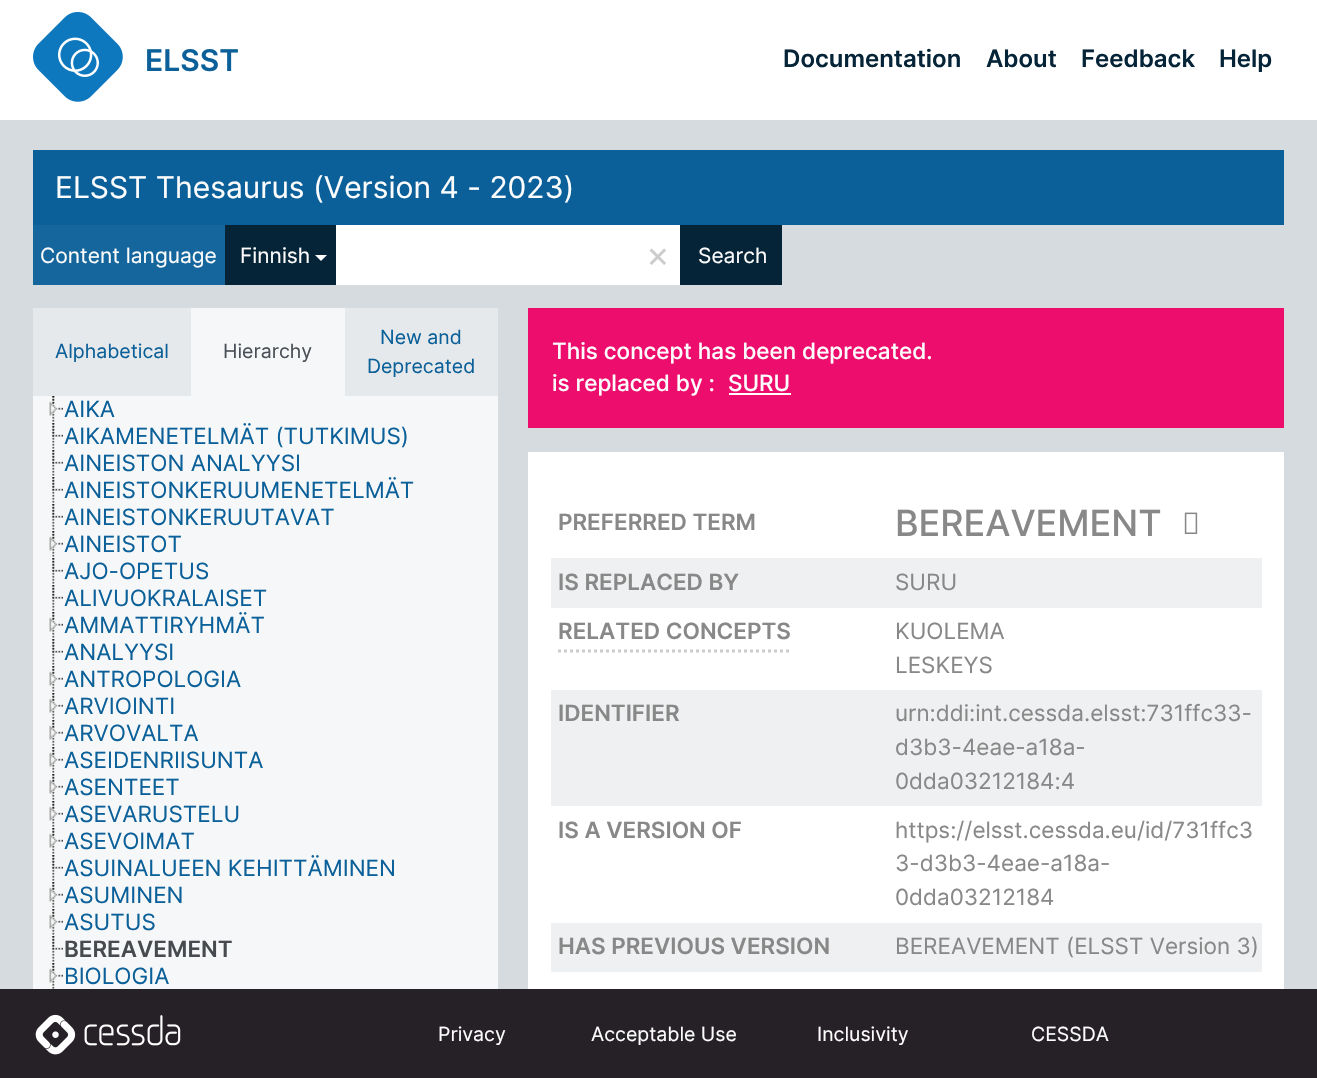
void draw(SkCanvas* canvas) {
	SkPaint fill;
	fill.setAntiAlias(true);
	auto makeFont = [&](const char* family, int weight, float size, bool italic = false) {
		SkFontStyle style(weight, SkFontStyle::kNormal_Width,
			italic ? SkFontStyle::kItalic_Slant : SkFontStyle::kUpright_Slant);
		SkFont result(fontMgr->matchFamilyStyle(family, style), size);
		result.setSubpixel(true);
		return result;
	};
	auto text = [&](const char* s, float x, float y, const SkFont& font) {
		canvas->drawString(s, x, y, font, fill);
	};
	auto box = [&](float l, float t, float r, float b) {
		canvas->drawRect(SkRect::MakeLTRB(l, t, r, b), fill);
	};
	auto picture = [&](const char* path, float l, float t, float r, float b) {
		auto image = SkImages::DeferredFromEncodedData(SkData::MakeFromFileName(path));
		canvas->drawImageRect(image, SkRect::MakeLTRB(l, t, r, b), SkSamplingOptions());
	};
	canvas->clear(0xFFD5DBDE);
	fill.setColor(0xFFFFFFFF);
	box(0, 0, 1317, 120);
	picture("image0.png", 33, 12, 123, 102);
	fill.setColor(0xFF0B6099);
	box(33, 150, 1284, 225);
	fill.setColor(0xFF15669C);
	box(33, 225, 225, 285);
	fill.setColor(0xFF052438);
	box(225, 225, 336, 285);
	fill.setColor(0xFFFFFFFF);
	canvas->drawPath(SkPathBuilder().moveTo(315, 255).lineTo(327, 255).lineTo(321, 261).close().detach(), fill);
	box(336, 225, 680, 285);
	fill.setColor(0xFF052438);
	box(680, 225, 782, 285);
	fill.setColor(0xFFE6E9EB);
	box(33, 308, 191, 396);
	fill.setColor(0xFFF6F7F8);
	box(191, 308, 345, 396);
	fill.setColor(0xFFE6E9EB);
	box(345, 308, 498, 396);
	fill.setColor(0xFFF6F7F8);
	box(33, 396, 498, 989);
	picture("image1.png", 52, 396, 55, 422);
	picture("image2.png", 49, 396, 63, 416);
	picture("image1.png", 52, 423, 55, 449);
	picture("image3.png", 52, 423, 63, 437);
	picture("image1.png", 52, 450, 55, 476);
	picture("image3.png", 52, 450, 63, 464);
	picture("image1.png", 52, 477, 55, 503);
	picture("image3.png", 52, 477, 63, 491);
	picture("image1.png", 52, 504, 55, 530);
	picture("image3.png", 52, 504, 63, 518);
	picture("image1.png", 52, 531, 55, 557);
	picture("image2.png", 49, 531, 63, 551);
	picture("image1.png", 52, 558, 55, 584);
	picture("image3.png", 52, 558, 63, 572);
	picture("image1.png", 52, 585, 55, 611);
	picture("image3.png", 52, 585, 63, 599);
	picture("image1.png", 52, 612, 55, 638);
	picture("image2.png", 49, 612, 63, 632);
	picture("image1.png", 52, 639, 55, 665);
	picture("image3.png", 52, 639, 63, 653);
	picture("image1.png", 52, 666, 55, 692);
	picture("image2.png", 49, 666, 63, 686);
	picture("image1.png", 52, 693, 55, 719);
	picture("image2.png", 49, 693, 63, 713);
	picture("image1.png", 52, 720, 55, 746);
	picture("image2.png", 49, 720, 63, 740);
	picture("image1.png", 52, 747, 55, 773);
	picture("image2.png", 49, 747, 63, 767);
	picture("image1.png", 52, 774, 55, 800);
	picture("image2.png", 49, 774, 63, 794);
	picture("image1.png", 52, 801, 55, 827);
	picture("image2.png", 49, 801, 63, 821);
	picture("image1.png", 52, 828, 55, 854);
	picture("image2.png", 49, 828, 63, 848);
	picture("image1.png", 52, 855, 55, 881);
	picture("image3.png", 52, 855, 63, 869);
	picture("image1.png", 52, 882, 55, 908);
	picture("image2.png", 49, 882, 63, 902);
	picture("image1.png", 52, 909, 55, 935);
	picture("image2.png", 49, 909, 63, 929);
	picture("image1.png", 52, 936, 55, 962);
	picture("image3.png", 52, 936, 63, 950);
	picture("image1.png", 52, 963, 55, 989);
	picture("image2.png", 49, 963, 63, 983);
	fill.setColor(0xFFED0D6C);
	box(528, 308, 1284, 428);
	fill.setColor(0xFFFFFFFF);
	box(729, 393, 791, 395);
	box(528, 452, 1284, 989);
	picture("image4.png", 1184, 512, 1198, 534);
	fill.setColor(0xFFEFF0F1);
	box(551, 558, 1262, 608);
	fill.setStyle(SkPaint::kStroke_Style);
	fill.setStrokeWidth(3);
	fill.setColor(0xFFCCCCCC);
	fill.setPathEffect(SkDashPathEffect::Make({{3, 3}}, 0));
	canvas->drawPath(SkPathBuilder().moveTo(558, 651).lineTo(790.5f, 651).detach(), fill);
	fill.setPathEffect(nullptr);
	fill.setStyle(SkPaint::kFill_Style);
	fill.setColor(0xFFEFF0F1);
	box(551, 690, 1262, 806);
	box(551, 923, 1262, 972);
	fill.setColor(0xFF262126);
	box(0, 989, 1317, 1078);
	picture("image5.png", 35, 1014, 181, 1055);
	auto font1 = makeFont("Inter", 600, 30);
	fill.setColor(0xFF0B6099);
	text("ELSST", 145, 71, font1);
	auto font2 = makeFont("Inter", 600, 24);
	fill.setColor(0xFF052438);
	text("Documentation", 783, 67, font2);
	text("About", 986, 67, font2);
	text("Feedback", 1081, 67, font2);
	text("Help", 1219, 67, font2);
	auto font3 = makeFont("Inter", 400, 30);
	fill.setColor(0xFFFDFDFE);
	text("ELSST Thesaurus (Version 4 - 2023)", 55, 198, font3);
	auto font4 = makeFont("Inter", 400, 21);
	text("Content language", 40, 263, font4);
	text("Finnish", 240, 263, font4);
	auto font5 = makeFont("Inter", 400, 36);
	fill.setColor(0xFFCCCCCC);
	text("×", 646, 267, font5);
	fill.setColor(0xFFFDFDFE);
	text("Search", 698, 263, font4);
	auto font6 = makeFont("Inter", 400, 19.5f);
	fill.setColor(0xFF0B6099);
	text("Alphabetical", 55, 358, font6);
	fill.setColor(0xFF495057);
	text("Hierarchy", 223, 358, font6);
	fill.setColor(0xFF0B6099);
	text("New and", 380, 344, font6);
	text("Deprecated", 367, 373, font6);
	auto font7 = makeFont("Inter", 400, 22.5f);
	text("AIKA", 64, 417, font7);
	text("AIKAMENETELMÄT (TUTKIMUS)", 64, 444, font7);
	text("AINEISTON ANALYYSI", 64, 471, font7);
	text("AINEISTONKERUUMENETELMÄT", 64, 498, font7);
	text("AINEISTONKERUUTAVAT", 64, 525, font7);
	text("AINEISTOT", 64, 552, font7);
	text("AJO-OPETUS", 64, 579, font7);
	text("ALIVUOKRALAISET", 64, 606, font7);
	text("AMMATTIRYHMÄT", 64, 633, font7);
	text("ANALYYSI", 64, 660, font7);
	text("ANTROPOLOGIA", 64, 687, font7);
	text("ARVIOINTI", 64, 714, font7);
	text("ARVOVALTA", 64, 741, font7);
	text("ASEIDENRIISUNTA", 64, 768, font7);
	text("ASENTEET", 64, 795, font7);
	text("ASEVARUSTELU", 64, 822, font7);
	text("ASEVOIMAT", 64, 849, font7);
	text("ASUINALUEEN KEHITTÄMINEN", 64, 876, font7);
	text("ASUMINEN", 64, 903, font7);
	text("ASUTUS", 64, 930, font7);
	auto font8 = makeFont("Inter", 600, 22.5f);
	fill.setColor(0xFF474B4F);
	text("BEREAVEMENT", 64, 957, font8);
	fill.setColor(0xFF0B6099);
	text("BIOLOGIA", 64, 984, font7);
	auto font9 = makeFont("Inter", 500, 22.5f);
	fill.setColor(0xFFFDFDFE);
	text("This concept has been deprecated.", 552, 359, font9);
	text("is replaced by :", 552, 391, font9);
	text("SURU", 728, 391, font9);
	fill.setColor(0xFF888888);
	text("PREFERRED TERM", 558, 530, font8);
	auto font10 = makeFont("Inter", 500, 36);
	text("BEREAVEMENT", 895, 536, font10);
	text("IS REPLACED BY", 558, 590, font8);
	text("SURU", 895, 590, font7);
	text("RELATED CONCEPTS", 558, 639, font8);
	text("KUOLEMA", 895, 639, font7);
	text("LESKEYS", 895, 673, font7);
	text("IDENTIFIER", 558, 721, font8);
	text("urn:ddi:int.cessda.elsst:731ffc33-", 895, 721, font7);
	text("d3b3-4eae-a18a-", 895, 755, font7);
	text("0dda03212184:4", 895, 789, font7);
	text("IS A VERSION OF", 558, 838, font8);
	text("https://elsst.cessda.eu/id/731ffc3", 895, 838, font7);
	text("3-d3b3-4eae-a18a-", 895, 871, font7);
	text("0dda03212184", 895, 905, font7);
	text("HAS PREVIOUS VERSION", 558, 954, font8);
	text("BEREAVEMENT (ELSST Version 3)", 895, 954, font7);
	fill.setColor(0xFFFDFDFE);
	text("Privacy", 438, 1041, font6);
	text("Acceptable Use", 591, 1041, font6);
	text("Inclusivity", 817, 1041, font6);
	text("CESSDA", 1031, 1041, font6);
}
